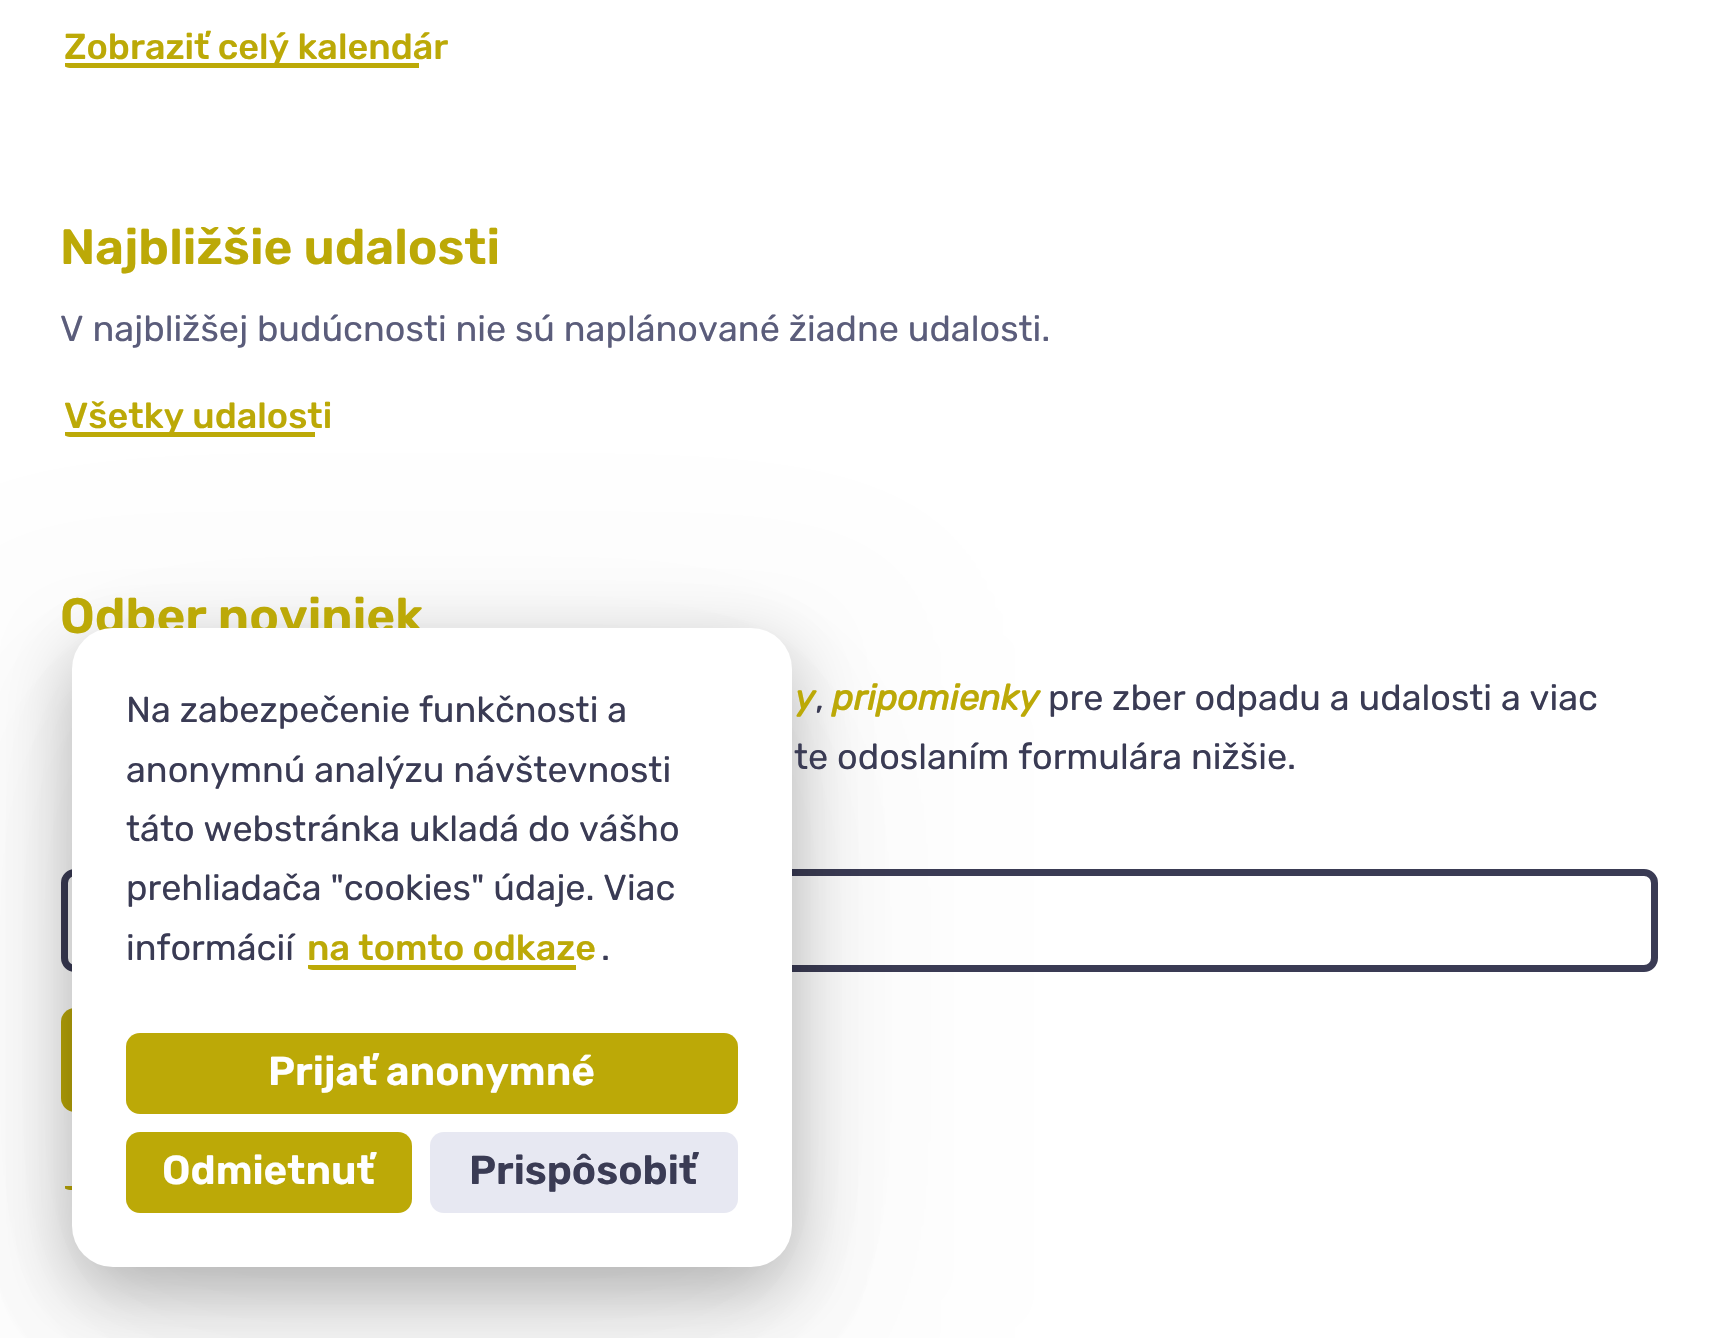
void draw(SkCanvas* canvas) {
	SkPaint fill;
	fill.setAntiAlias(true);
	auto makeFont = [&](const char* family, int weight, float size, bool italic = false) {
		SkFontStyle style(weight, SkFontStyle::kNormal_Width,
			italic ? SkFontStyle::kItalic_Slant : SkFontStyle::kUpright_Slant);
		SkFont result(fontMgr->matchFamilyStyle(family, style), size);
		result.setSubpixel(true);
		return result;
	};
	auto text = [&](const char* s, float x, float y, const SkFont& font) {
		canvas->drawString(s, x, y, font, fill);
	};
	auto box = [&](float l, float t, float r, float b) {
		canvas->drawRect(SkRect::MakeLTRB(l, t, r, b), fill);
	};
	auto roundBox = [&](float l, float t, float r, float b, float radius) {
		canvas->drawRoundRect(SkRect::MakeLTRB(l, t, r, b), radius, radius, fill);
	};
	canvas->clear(0xFFFFFFFF);
	canvas->save();
	canvas->clipPath(SkPathBuilder().moveTo(70, 25).lineTo(443, 25).cubicTo(448, 25, 452, 29, 452, 34).lineTo(452, 59).cubicTo(452, 64, 448, 68, 443, 68).lineTo(70, 68).cubicTo(65, 68, 61, 64, 61, 59).lineTo(61, 34).cubicTo(61, 29, 65, 25, 70, 25).close().detach(), true);
	fill.setColor(0xFFBCA907);
	box(65, 63, 419, 68);
	canvas->restore();
	canvas->save();
	canvas->clipPath(SkPathBuilder().moveTo(70, 394).lineTo(329, 394).cubicTo(334, 394, 338, 398, 338, 403).lineTo(338, 428).cubicTo(338, 433, 334, 437, 329, 437).lineTo(70, 437).cubicTo(65, 437, 61, 433, 61, 428).lineTo(61, 403).cubicTo(61, 398, 65, 394, 70, 394).close().detach(), true);
	box(65, 432, 315, 437);
	canvas->restore();
	fill.setStyle(SkPaint::kStroke_Style);
	fill.setStrokeWidth(7);
	fill.setColor(0xFF3A3B54);
	canvas->drawRoundRect(SkRect::MakeLTRB(64.5f, 872.5f, 1654.5f, 968.5f), 10.5f, 10.5f, fill);
	fill.setStyle(SkPaint::kFill_Style);
	fill.setColor(0xFFBCA907);
	roundBox(61, 1008, 581, 1112, 14);
	canvas->save();
	canvas->clipPath(SkPathBuilder().moveTo(70, 1130).lineTo(401, 1130).cubicTo(406, 1130, 410, 1134, 410, 1139).lineTo(410, 1181).cubicTo(410, 1186, 406, 1190, 401, 1190).lineTo(70, 1190).cubicTo(65, 1190, 61, 1186, 61, 1181).lineTo(61, 1139).cubicTo(61, 1134, 65, 1130, 70, 1130).close().detach(), true);
	box(65, 1186, 72, 1190);
	canvas->restore();
	fill.setColor(0x0D000000);
	fill.setMaskFilter(SkMaskFilter::MakeBlur(kNormal_SkBlurStyle, 101));
	canvas->drawRoundRect(SkRect::MakeLTRB(72, 695, 792, 1334), 41, 41, fill);
	fill.setMaskFilter(nullptr);
	fill.setMaskFilter(SkMaskFilter::MakeBlur(kNormal_SkBlurStyle, 67.5f));
	canvas->drawRoundRect(SkRect::MakeLTRB(72, 673, 792, 1312), 41, 41, fill);
	fill.setMaskFilter(nullptr);
	fill.setColor(0x40000000);
	fill.setMaskFilter(SkMaskFilter::MakeBlur(kNormal_SkBlurStyle, 34));
	canvas->drawRoundRect(SkRect::MakeLTRB(72, 650, 792, 1289), 41, 41, fill);
	fill.setMaskFilter(nullptr);
	auto font1 = makeFont("Rubik", 500, 36);
	fill.setColor(0xFFBCA907);
	text("Zobraziť celý kalendár", 64, 59, font1);
	auto font2 = makeFont("Rubik", 600, 49.5f);
	text("Najbližšie udalosti", 60, 264, font2);
	auto font3 = makeFont("Rubik", 400, 36);
	fill.setColor(0xFF5B5D7B);
	text("V najbližšej budúcnosti nie sú naplánované žiadne udalosti.", 60, 341, font3);
	fill.setColor(0xFFBCA907);
	text("Všetky udalosti", 64, 428, font1);
	text("Odber noviniek", 60, 633, font2);
	auto font4 = makeFont("Rubik", 700, 36, true);
	text("y", 795, 710, font4);
	fill.setColor(0xFF3A3B54);
	text(",", 815, 710, font3);
	fill.setColor(0xFFBCA907);
	text("pripomienky", 832, 710, font4);
	fill.setColor(0xFF3A3B54);
	text("pre zber odpadu a udalosti a viac", 1048, 710, font3);
	text("te odoslaním formulára nižšie.", 794, 769, font3);
	fill.setColor(0xFFFFFFFF);
	roundBox(72, 628, 792, 1267, 41);
	fill.setColor(0xFF3A3B54);
	text("Na zabezpečenie funkčnosti a", 126, 722, font3);
	text("anonymnú analýzu návštevnosti", 126, 782, font3);
	text("táto webstránka ukladá do vášho", 126, 841, font3);
	text("prehliadača \"cookies\" údaje. Viac", 126, 900, font3);
	text("informácií", 126, 960, font3);
	fill.setColor(0xFFBCA907);
	text("na tomto odkaze", 307, 960, font1);
	canvas->save();
	canvas->clipPath(SkPathBuilder().moveTo(313, 927).lineTo(592, 927).cubicTo(597, 927, 601, 931, 601, 936).lineTo(601, 961).cubicTo(601, 966, 597, 970, 592, 970).lineTo(313, 970).cubicTo(308, 970, 304, 966, 304, 961).lineTo(304, 936).cubicTo(304, 931, 308, 927, 313, 927).close().detach(), true);
	box(308, 965, 576, 970);
	canvas->restore();
	fill.setColor(0xFF3A3B54);
	text(".", 601, 960, font3);
	fill.setColor(0xFFBCA907);
	roundBox(126, 1033, 738, 1114, 14);
	auto font5 = makeFont("Rubik", 600, 40.5f);
	fill.setColor(0xFFFFFFFF);
	text("Prijať anonymné", 268, 1085, font5);
	fill.setColor(0xFFBCA907);
	roundBox(126, 1132, 412, 1213, 14);
	fill.setColor(0xFFFFFFFF);
	text("Odmietnuť", 162, 1184, font5);
	fill.setColor(0xFFE7E8F2);
	roundBox(430, 1132, 738, 1213, 14);
	fill.setColor(0xFF3A3B54);
	text("Prispôsobiť", 469, 1184, font5);
}
